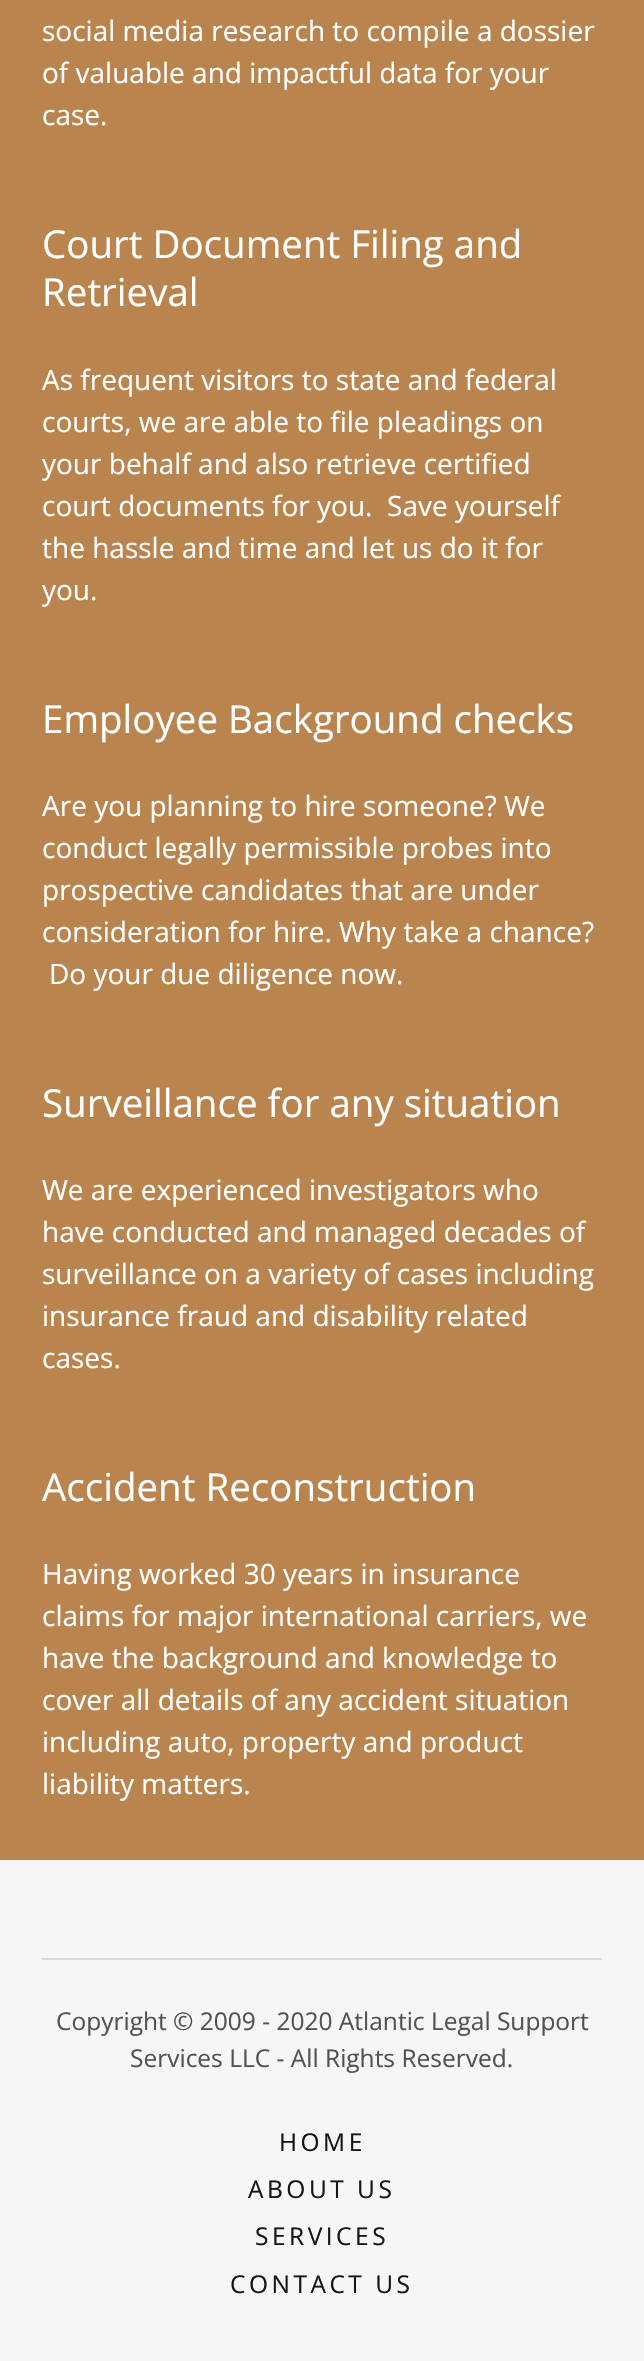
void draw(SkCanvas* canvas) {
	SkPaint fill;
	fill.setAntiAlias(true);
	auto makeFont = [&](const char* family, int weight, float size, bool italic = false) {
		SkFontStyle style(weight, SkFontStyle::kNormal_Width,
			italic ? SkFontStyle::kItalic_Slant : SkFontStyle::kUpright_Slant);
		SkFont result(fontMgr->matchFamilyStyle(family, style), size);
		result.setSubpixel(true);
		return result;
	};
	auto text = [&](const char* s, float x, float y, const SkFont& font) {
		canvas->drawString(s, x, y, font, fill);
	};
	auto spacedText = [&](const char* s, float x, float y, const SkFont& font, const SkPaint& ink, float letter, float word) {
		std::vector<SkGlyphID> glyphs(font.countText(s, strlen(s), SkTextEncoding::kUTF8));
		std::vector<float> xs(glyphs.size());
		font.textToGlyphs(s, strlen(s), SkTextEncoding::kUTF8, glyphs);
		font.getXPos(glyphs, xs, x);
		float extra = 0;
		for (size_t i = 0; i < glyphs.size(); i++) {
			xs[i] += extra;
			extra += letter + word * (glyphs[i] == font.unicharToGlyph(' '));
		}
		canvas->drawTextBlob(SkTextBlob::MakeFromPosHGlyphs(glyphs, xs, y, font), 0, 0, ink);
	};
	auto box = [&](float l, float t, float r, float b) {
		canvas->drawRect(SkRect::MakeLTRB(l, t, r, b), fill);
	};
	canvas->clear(0xFFF6F6F6);
	fill.setColor(0xFFB9844D);
	box(0, 0, 644, 1860);
	fill.setColor(0xFFDADADA);
	box(42, 1958, 602, 1960);
	auto font1 = makeFont("Open Sans", 400, 28);
	fill.setColor(0xFFFFFFFF);
	text("social media research to compile a dossier", 42, 41, font1);
	text("of valuable and impactful data for your", 42, 83, font1);
	text("case.", 42, 125, font1);
	auto font2 = makeFont("Open Sans", 400, 38.5f);
	text("Court Document Filing and", 42, 258, font2);
	text("Retrieval", 42, 306, font2);
	text("As frequent visitors to state and federal", 42, 390, font1);
	text("courts, we are able to file pleadings on", 42, 432, font1);
	text("your behalf and also retrieve certified", 42, 474, font1);
	text("court documents for you.  Save yourself", 42, 516, font1);
	text("the hassle and time and let us do it for", 42, 558, font1);
	text("you.", 42, 600, font1);
	text("Employee Background checks", 42, 733, font2);
	text("Are you planning to hire someone? We", 42, 816, font1);
	text("conduct legally permissible probes into", 42, 858, font1);
	text("prospective candidates that are under", 42, 900, font1);
	text("consideration for hire. Why take a chance?", 42, 942, font1);
	text("Do your due diligence now.", 49, 984, font1);
	text("Surveillance for any situation", 42, 1117, font2);
	text("We are experienced investigators who", 42, 1200, font1);
	text("have conducted and managed decades of", 42, 1242, font1);
	text("surveillance on a variety of cases including", 42, 1284, font1);
	text("insurance fraud and disability related", 42, 1326, font1);
	text("cases.", 42, 1368, font1);
	text("Accident Reconstruction", 42, 1501, font2);
	text("Having worked 30 years in insurance", 42, 1584, font1);
	text("claims for major international carriers, we", 42, 1626, font1);
	text("have the background and knowledge to", 42, 1668, font1);
	text("cover all details of any accident situation", 42, 1710, font1);
	text("including auto, property and product", 42, 1752, font1);
	text("liability matters.", 42, 1794, font1);
	auto font3 = makeFont("Open Sans", 400, 24.5f);
	fill.setColor(0xFF525252);
	text("Copyright © 2009 - 2020 Atlantic Legal Support", 56, 2030, font3);
	text("Services LLC - All Rights Reserved.", 130, 2067, font3);
	fill.setColor(0xFF151515);
	spacedText("HOME", 279, 2151, font3, fill, 3.5f, 0);
	spacedText("ABOUT US", 248, 2198, font3, fill, 3.5f, 0);
	spacedText("SERVICES", 255, 2245, font3, fill, 3.5f, 0);
	spacedText("CONTACT US", 230, 2293, font3, fill, 3.5f, 0);
}
